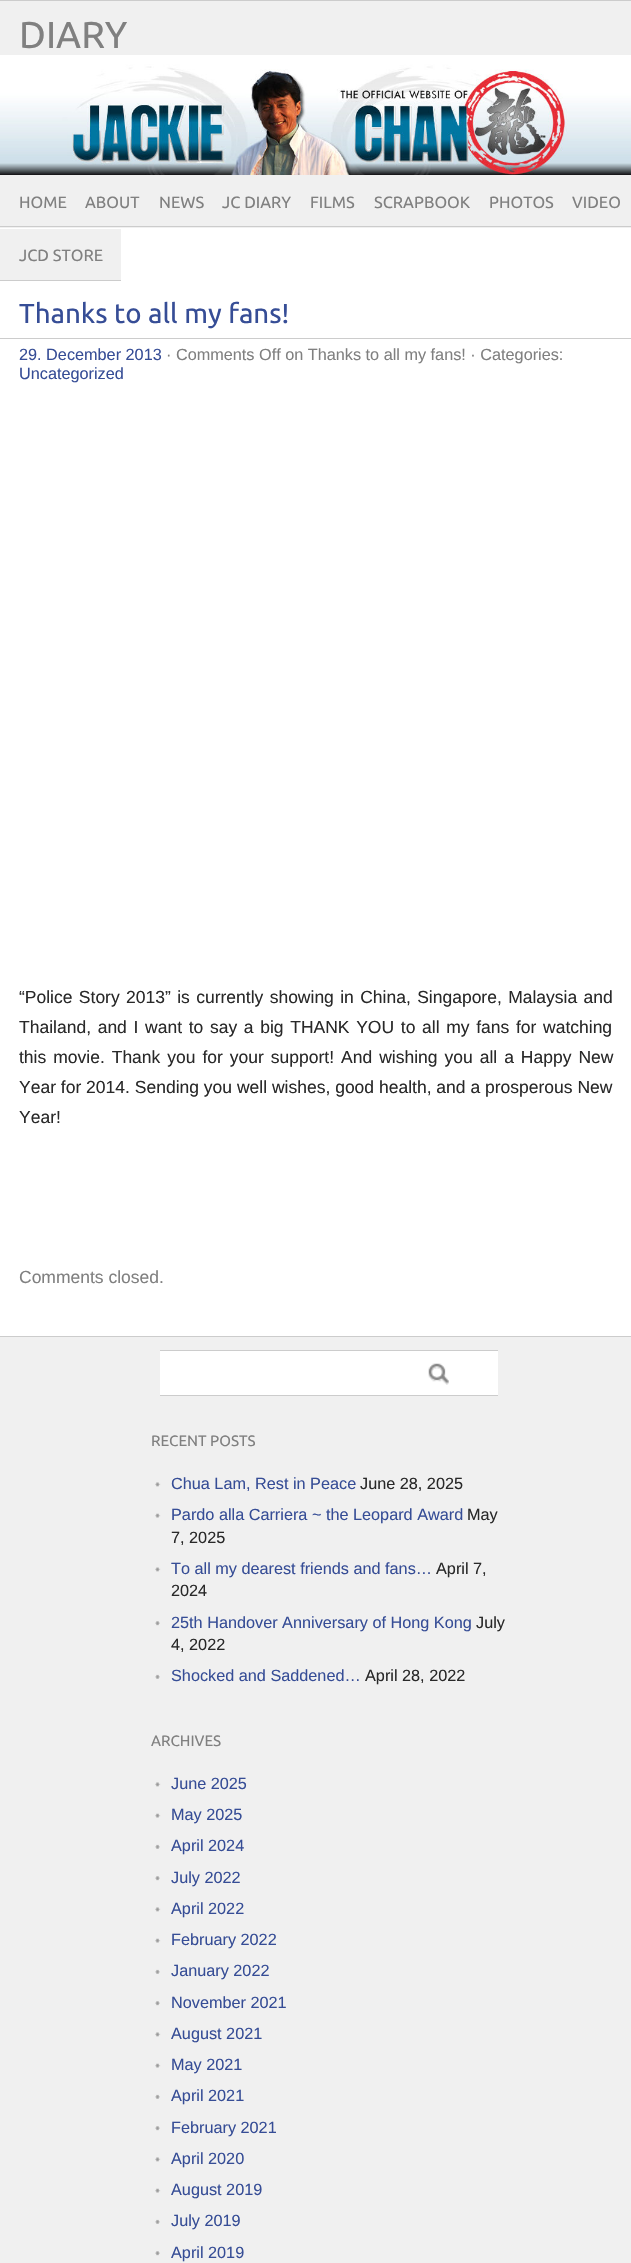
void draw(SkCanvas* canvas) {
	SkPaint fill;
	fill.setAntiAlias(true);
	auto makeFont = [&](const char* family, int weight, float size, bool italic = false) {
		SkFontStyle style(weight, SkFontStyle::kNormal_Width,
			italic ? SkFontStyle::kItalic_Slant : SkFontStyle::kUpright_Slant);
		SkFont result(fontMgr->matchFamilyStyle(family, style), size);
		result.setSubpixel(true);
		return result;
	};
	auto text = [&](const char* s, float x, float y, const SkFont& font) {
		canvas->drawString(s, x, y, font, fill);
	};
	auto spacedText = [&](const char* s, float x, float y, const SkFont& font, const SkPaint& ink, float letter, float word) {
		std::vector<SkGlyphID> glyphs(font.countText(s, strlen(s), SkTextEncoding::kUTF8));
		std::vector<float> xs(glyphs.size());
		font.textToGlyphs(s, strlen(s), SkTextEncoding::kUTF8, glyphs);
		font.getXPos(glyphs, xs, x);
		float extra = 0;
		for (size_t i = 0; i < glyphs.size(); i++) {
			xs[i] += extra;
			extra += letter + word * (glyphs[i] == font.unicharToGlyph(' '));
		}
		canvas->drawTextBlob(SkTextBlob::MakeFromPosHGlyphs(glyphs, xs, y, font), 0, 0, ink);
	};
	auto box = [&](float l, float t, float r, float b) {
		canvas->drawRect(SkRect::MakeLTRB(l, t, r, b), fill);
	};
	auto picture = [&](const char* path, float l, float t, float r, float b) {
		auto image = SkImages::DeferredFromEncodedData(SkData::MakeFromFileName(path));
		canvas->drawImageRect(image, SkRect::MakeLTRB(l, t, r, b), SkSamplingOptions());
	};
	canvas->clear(0xFFFFFFFF);
	fill.setColor(0xFFF0F0F0);
	box(0, 1, 631, 228);
	fill.setColor(0xFFCCCCCC);
	box(0, 0, 631, 1);
	box(621, 226, 631, 227);
	picture("image0.png", 0, 55, 631, 175);
	box(0, 226, 621, 227);
	fill.setColor(0xFFF0F0F0);
	box(0, 229, 121, 280);
	fill.setColor(0xFFCCCCCC);
	box(0, 280, 121, 281);
	box(0, 338, 631, 339);
	fill.setColor(0xFFF0F0F0);
	box(0, 1337, 631, 2263);
	fill.setColor(0xFFCCCCCC);
	box(0, 1336, 631, 1337);
	fill.setColor(0xFFFFFFFF);
	box(160, 1351, 498, 1395);
	fill.setColor(0xFFCCCCCC);
	box(160, 1350, 498, 1351);
	box(160, 1395, 498, 1396);
	picture("image1.png", 428, 1363, 449, 1385);
	picture("image2.png", 155, 1482, 161, 1487);
	picture("image3.png", 155, 1513, 161, 1518);
	picture("image4.png", 155, 1567, 161, 1572);
	picture("image5.png", 155, 1621, 160, 1626);
	picture("image6.png", 155, 1674, 160, 1679);
	picture("image2.png", 155, 1782, 161, 1787);
	picture("image3.png", 155, 1813, 161, 1818);
	picture("image6.png", 155, 1844, 160, 1849);
	picture("image5.png", 155, 1876, 160, 1881);
	picture("image2.png", 155, 1907, 161, 1912);
	picture("image3.png", 155, 1938, 161, 1943);
	picture("image6.png", 155, 1969, 160, 1974);
	picture("image5.png", 155, 2001, 160, 2006);
	picture("image2.png", 155, 2032, 161, 2037);
	picture("image3.png", 155, 2063, 161, 2068);
	picture("image6.png", 155, 2094, 160, 2099);
	picture("image5.png", 155, 2126, 160, 2131);
	picture("image2.png", 155, 2157, 161, 2162);
	picture("image3.png", 155, 2188, 161, 2193);
	picture("image6.png", 155, 2219, 160, 2224);
	picture("image5.png", 155, 2251, 160, 2256);
	auto font1 = makeFont("Ubuntu", 400, 37.5f);
	fill.setColor(0xFF808080);
	text("DIARY", 19, 48, font1);
	auto font2 = makeFont("Ubuntu", 400, 16.25f);
	text("HOME", 19, 208, font2);
	text("ABOUT", 85, 208, font2);
	text("NEWS", 159, 208, font2);
	text("JC DIARY", 222, 208, font2);
	fill.setColor(0xFFF0F0F0);
	box(291, 196, 292, 198);
	fill.setColor(0xFF808080);
	text("FILMS", 310, 208, font2);
	text("SCRAPBOOK", 374, 208, font2);
	text("PHOTOS", 489, 208, font2);
	text("VIDEO", 572, 208, font2);
	text("JCD STORE", 19, 261, font2);
	auto font3 = makeFont("Ubuntu", 400, 27.5f);
	fill.setColor(0xFF364D96);
	text("Thanks to all my fans!", 19, 323, font3);
	auto font4 = makeFont("Liberation Sans", 400, 16.25f);
	text("29. December 2013", 19, 360, font4);
	fill.setColor(0xFF808080);
	text("· Comments Off on Thanks to all my fans! · Categories:", 166, 360, font4);
	fill.setColor(0xFF364D96);
	text("Uncategorized", 19, 379, font4);
	auto font5 = makeFont("Liberation Sans", 400, 17.5f);
	fill.setColor(0xFF292929);
	spacedText("“Police Story 2013” is currently showing in China, Singapore, Malaysia and", 19, 1003, font5, fill, 0, 1.5f);
	spacedText("Thailand, and I want to say a big THANK YOU to all my fans for watching", 19, 1033, font5, fill, 0, 1.8f);
	spacedText("this movie. Thank you for your support! And wishing you all a Happy New", 19, 1063, font5, fill, 0, 2.1f);
	text("Year for 2014. Sending you well wishes, good health, and a prosperous New", 19, 1093, font5);
	text("Year!", 19, 1123, font5);
	fill.setColor(0xFF808080);
	text("Comments closed.", 19, 1283, font5);
	auto font6 = makeFont("Ubuntu", 400, 15);
	text("RECENT POSTS", 151, 1446, font6);
	fill.setColor(0xFF364D96);
	text("Chua Lam, Rest in Peace", 171, 1489, font4);
	fill.setColor(0xFF292929);
	text("June 28, 2025", 360, 1489, font4);
	fill.setColor(0xFF364D96);
	text("Pardo alla Carriera ~ the Leopard Award", 171, 1520, font4);
	fill.setColor(0xFF292929);
	text("May", 467, 1520, font4);
	text("7, 2025", 171, 1543, font4);
	fill.setColor(0xFF364D96);
	text("To all my dearest friends and fans…", 171, 1574, font4);
	fill.setColor(0xFF292929);
	text("April 7,", 436, 1574, font4);
	text("2024", 171, 1596, font4);
	fill.setColor(0xFF364D96);
	text("25th Handover Anniversary of Hong Kong", 171, 1628, font4);
	fill.setColor(0xFF292929);
	text("July", 476, 1628, font4);
	text("4, 2022", 171, 1650, font4);
	fill.setColor(0xFF364D96);
	text("Shocked and Saddened…", 171, 1681, font4);
	fill.setColor(0xFF292929);
	text("April 28, 2022", 365, 1681, font4);
	fill.setColor(0xFF808080);
	text("ARCHIVES", 151, 1746, font6);
	fill.setColor(0xFF364D96);
	text("June 2025", 171, 1789, font4);
	text("May 2025", 171, 1820, font4);
	text("April 2024", 171, 1851, font4);
	text("July 2022", 171, 1883, font4);
	text("April 2022", 171, 1914, font4);
	text("February 2022", 171, 1945, font4);
	text("January 2022", 171, 1976, font4);
	text("November 2021", 171, 2008, font4);
	text("August 2021", 171, 2039, font4);
	text("May 2021", 171, 2070, font4);
	text("April 2021", 171, 2101, font4);
	text("February 2021", 171, 2133, font4);
	text("April 2020", 171, 2164, font4);
	text("August 2019", 171, 2195, font4);
	text("July 2019", 171, 2226, font4);
	text("April 2019", 171, 2258, font4);
}
